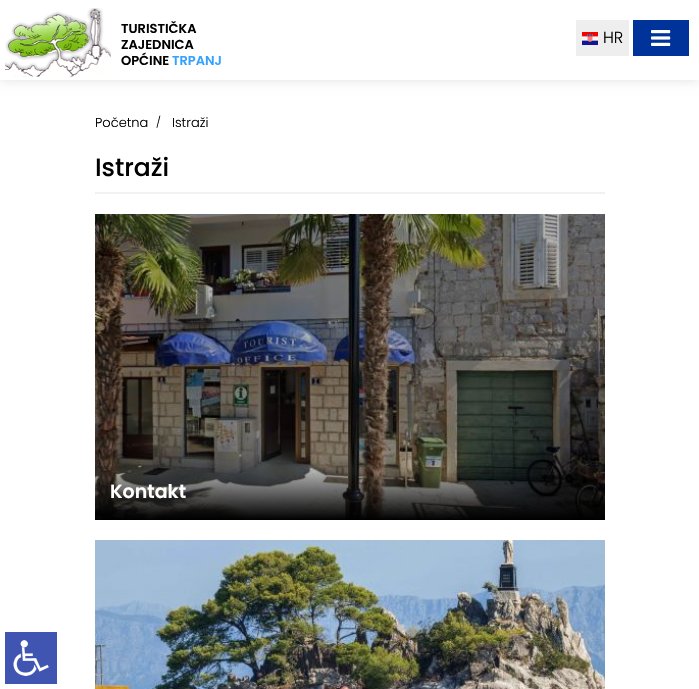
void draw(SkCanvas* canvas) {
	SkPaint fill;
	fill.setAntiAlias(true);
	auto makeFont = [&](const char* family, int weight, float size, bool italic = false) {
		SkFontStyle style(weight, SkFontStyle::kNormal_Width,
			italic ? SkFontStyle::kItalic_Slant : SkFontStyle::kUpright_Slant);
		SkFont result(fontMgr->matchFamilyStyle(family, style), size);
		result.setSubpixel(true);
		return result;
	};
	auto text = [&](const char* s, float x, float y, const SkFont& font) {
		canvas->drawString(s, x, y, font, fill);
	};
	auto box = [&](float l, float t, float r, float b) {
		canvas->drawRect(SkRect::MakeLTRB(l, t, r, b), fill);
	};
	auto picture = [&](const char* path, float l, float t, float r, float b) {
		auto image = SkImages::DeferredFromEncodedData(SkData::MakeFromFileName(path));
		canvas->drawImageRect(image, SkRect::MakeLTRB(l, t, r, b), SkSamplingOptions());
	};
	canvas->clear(0xFFFFFFFF);
	fill.setColor(0x1A000000);
	fill.setMaskFilter(SkMaskFilter::MakeBlur(kNormal_SkBlurStyle, 5));
	canvas->drawRect(SkRect::MakeLTRB(0, 1, 699, 81), fill);
	fill.setMaskFilter(nullptr);
	fill.setColor(0xFFFFFFFF);
	box(0, 0, 699, 80);
	picture("image0.png", 5, 8, 111, 77);
	fill.setColor(0xFFEEEEEE);
	box(576, 20, 629, 56);
	picture("image1.png", 582, 32, 598, 45);
	fill.setColor(0xFF003399);
	box(633, 20, 689, 56);
	picture("image2.png", 651, 30, 671, 46);
	fill.setColor(0xFFF1F1F1);
	box(95, 192, 605, 194);
	picture("image3.png", 95, 214, 605, 520);
	picture("image4.png", 95, 540, 605, 689);
	picture("image5.png", 5, 632, 57, 684);
	auto font1 = makeFont("Poppins", 600, 13);
	fill.setColor(0xFF000000);
	text("TURISTIČKA", 121, 33, font1);
	text("ZAJEDNICA", 121, 49, font1);
	text("OPĆINE", 121, 65, font1);
	fill.setColor(0xFF35A2FF);
	text("TRPANJ", 172, 65, font1);
	auto font2 = makeFont("Poppins", 300, 16);
	fill.setColor(0xFF000000);
	text("HR", 603, 43, font2);
	auto font3 = makeFont("Poppins", 300, 13);
	text("Početna", 95, 127, font3);
	auto font4 = makeFont("Poppins", 300, 11);
	text("/", 156, 126, font4);
	text("Istraži", 172, 127, font3);
	auto font5 = makeFont("Poppins", 500, 25);
	text("Istraži", 95, 176, font5);
	auto font6 = makeFont("Poppins", 600, 19);
	fill.setColor(0xFFFFFFFF);
	text("Kontakt", 110, 498, font6);
}
